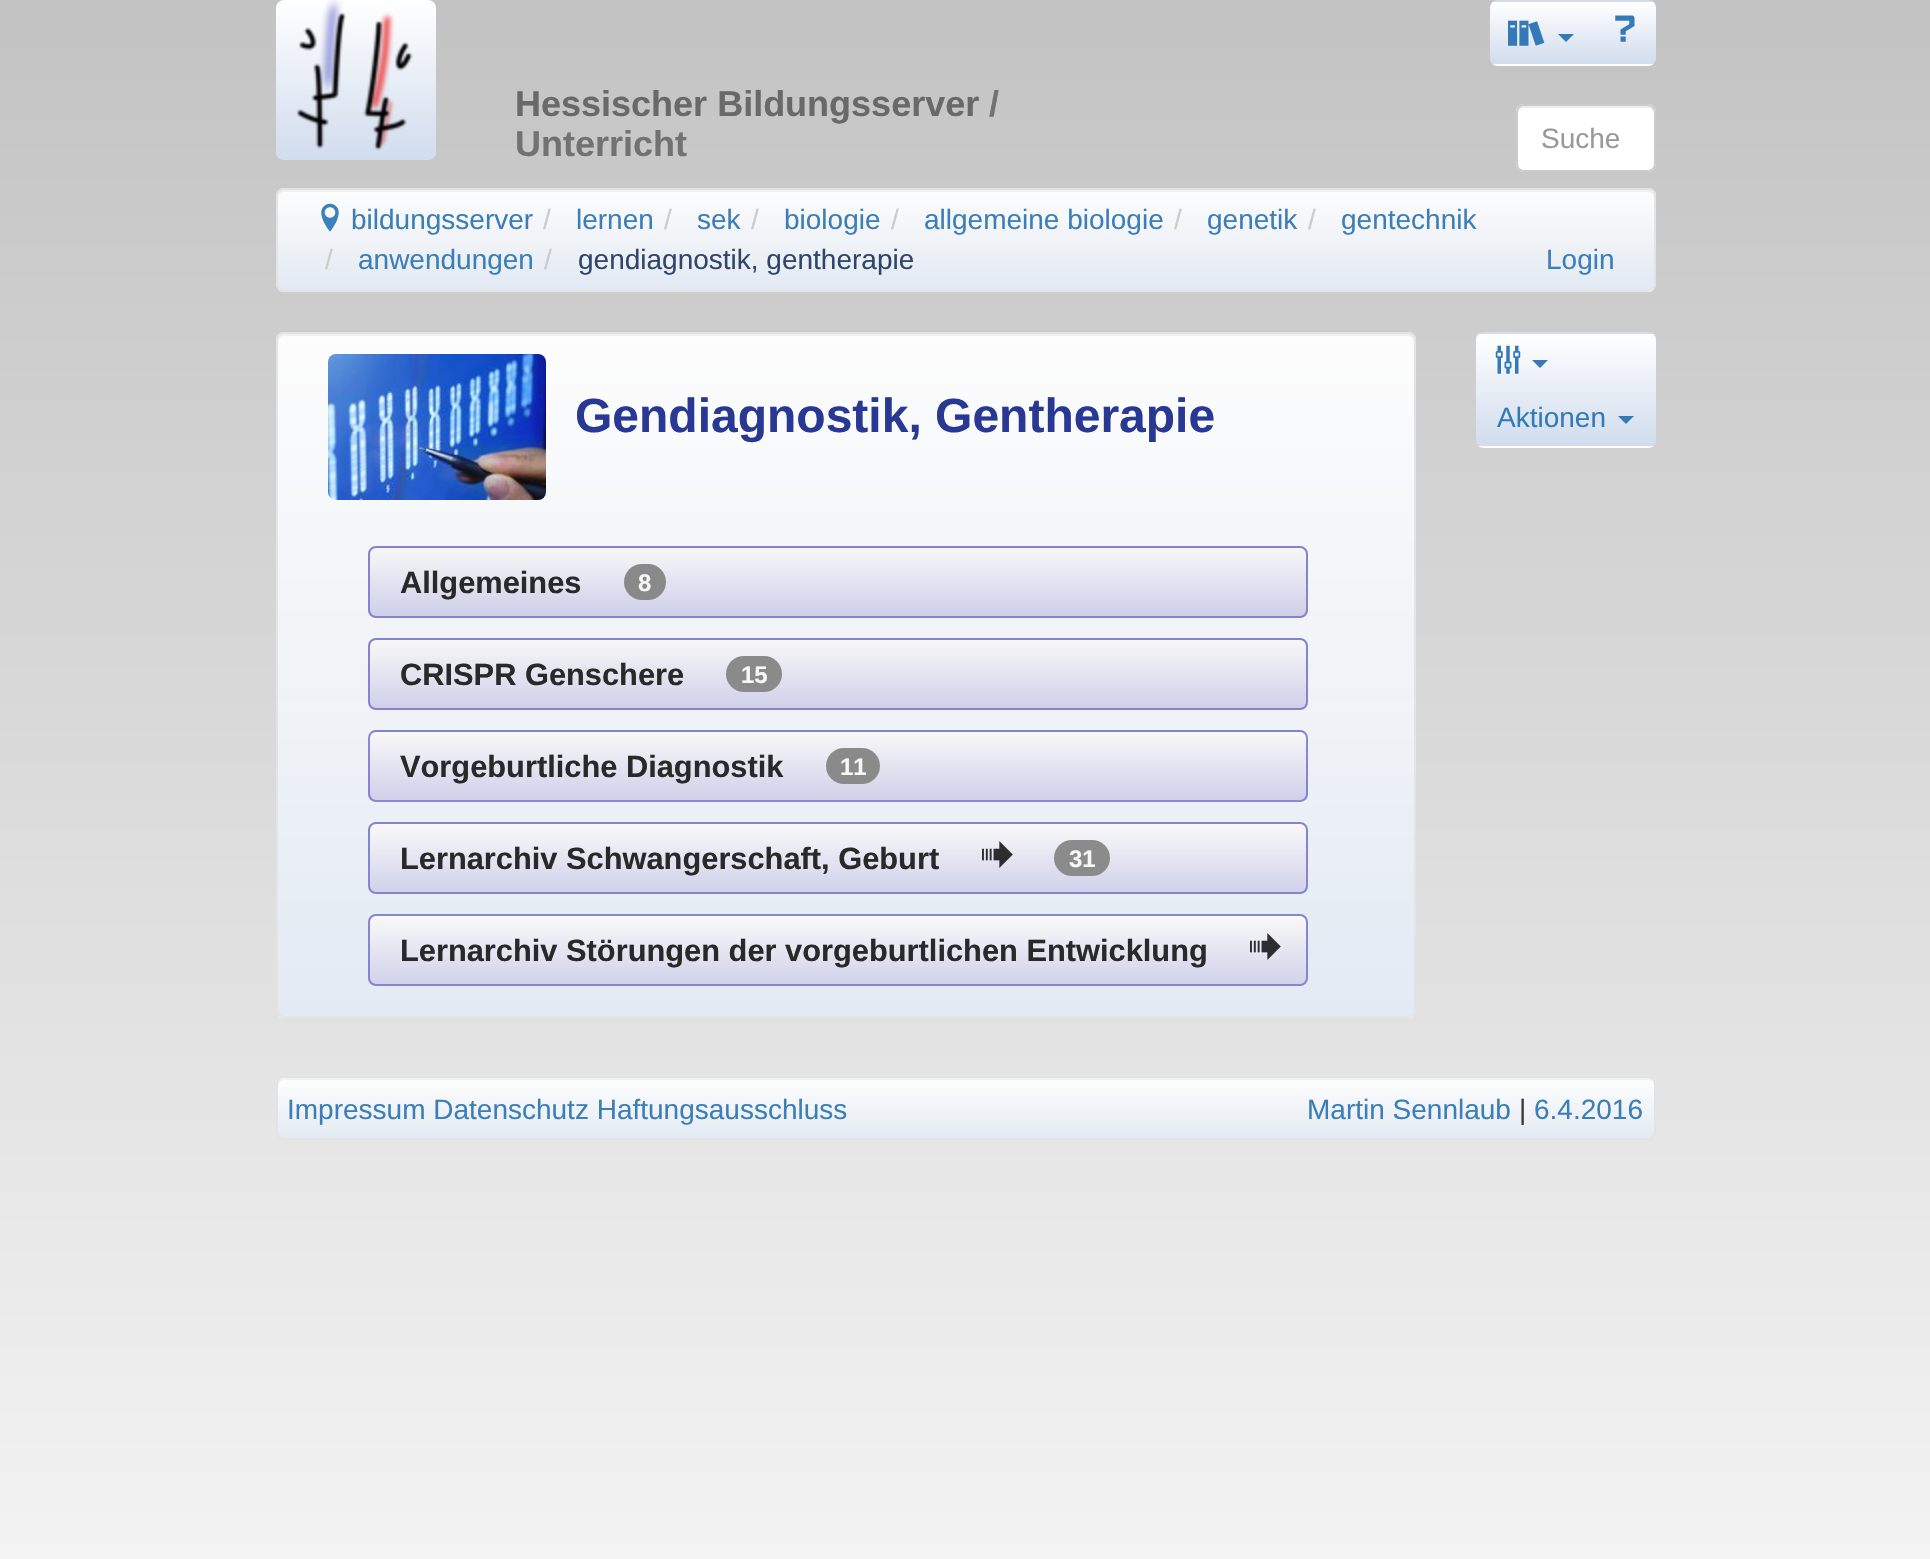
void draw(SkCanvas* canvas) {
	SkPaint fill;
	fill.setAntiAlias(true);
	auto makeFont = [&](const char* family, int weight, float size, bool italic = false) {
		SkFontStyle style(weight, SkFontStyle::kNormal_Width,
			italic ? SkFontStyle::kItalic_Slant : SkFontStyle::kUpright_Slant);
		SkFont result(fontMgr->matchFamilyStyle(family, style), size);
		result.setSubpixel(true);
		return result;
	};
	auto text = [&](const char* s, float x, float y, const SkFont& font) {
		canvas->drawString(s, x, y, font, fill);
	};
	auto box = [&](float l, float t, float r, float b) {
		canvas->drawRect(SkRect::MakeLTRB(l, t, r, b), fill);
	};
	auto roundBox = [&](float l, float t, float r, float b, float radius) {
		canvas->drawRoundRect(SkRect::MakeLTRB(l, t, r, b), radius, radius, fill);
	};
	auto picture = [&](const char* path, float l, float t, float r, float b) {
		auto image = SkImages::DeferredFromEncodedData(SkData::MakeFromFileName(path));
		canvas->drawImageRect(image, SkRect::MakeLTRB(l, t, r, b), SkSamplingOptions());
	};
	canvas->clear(0xFFFFFFFF);
	{
		const SkColor colors[] = {0xFFF3F3F3, 0xFFC3C3C3};
		const float stops[] = {0, 1};
		const SkPoint ends[] = {{965, 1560}, {965, 0}};
		fill.setShader(SkGradientShader::MakeLinear(ends, colors, stops, 2, SkTileMode::kClamp));
		fill.setAlpha(255);
	}
	box(0, 0, 1930, 1559);
	{
		const SkColor colors[] = {0xFFD1DCED, 0xFFFFFFFF};
		const float stops[] = {0, 1};
		const SkPoint ends[] = {{276, 160}, {276, 0}};
		fill.setShader(SkGradientShader::MakeLinear(ends, colors, stops, 2, SkTileMode::kClamp));
		fill.setAlpha(255);
	}
	roundBox(276, 0, 436, 160, 8);
	picture("image0.png", 296, 0, 413, 151);
	canvas->save();
	canvas->clipPath(SkPathBuilder().moveTo(1498, 0).lineTo(1648, 0).cubicTo(1652.5f, 0, 1656, 3.5f, 1656, 8).lineTo(1656, 58).cubicTo(1656, 62.5f, 1652.5f, 66, 1648, 66).lineTo(1498, 66).cubicTo(1493.5f, 66, 1490, 62.5f, 1490, 58).lineTo(1490, 8).cubicTo(1490, 3.5f, 1493.5f, 0, 1498, 0).close().detach(), true);
	{
		const SkColor colors[] = {0xFFD1DCED, 0xFFFFFFFF};
		const float stops[] = {0, 1};
		const SkPoint ends[] = {{1492, 2}, {1492, -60}};
		fill.setShader(SkGradientShader::MakeLinear(ends, colors, stops, 2, SkTileMode::kClamp));
		fill.setAlpha(255);
	}
	box(1490, 0, 1656, 2);
	{
		const SkColor colors[] = {0xFFD1DCED, 0xFFFFFFFF};
		const float stops[] = {0, 1};
		const SkPoint ends[] = {{1492, 64}, {1492, 2}};
		fill.setShader(SkGradientShader::MakeLinear(ends, colors, stops, 2, SkTileMode::kClamp));
		fill.setAlpha(255);
	}
	box(1490, 2, 1656, 64);
	{
		const SkColor colors[] = {0xFFD1DCED, 0xFFFFFFFF};
		const float stops[] = {0, 1};
		const SkPoint ends[] = {{1492, 126}, {1492, 64}};
		fill.setShader(SkGradientShader::MakeLinear(ends, colors, stops, 2, SkTileMode::kClamp));
		fill.setAlpha(255);
	}
	box(1490, 64, 1656, 66);
	canvas->restore();
	picture("image1.png", 1508, 20, 1545, 46);
	fill.setShader(nullptr);
	fill.setColor(0xFF337AB7);
	canvas->drawPath(SkPathBuilder().moveTo(1558, 34).lineTo(1574, 34).lineTo(1566, 42).close().detach(), fill);
	picture("image2.png", 1615, 15, 1635, 42);
	fill.setColor(0xFFFFFFFF);
	roundBox(1516, 104, 1656, 172, 8);
	fill.setColor(0xFFECECEC);
	canvas->drawPath(SkPathBuilder().moveTo(1524, 108).lineTo(1648, 108).cubicTo(1651, 108, 1654, 111, 1654, 114).lineTo(1654, 112).cubicTo(1654, 109, 1651, 106, 1648, 106).lineTo(1524, 106).cubicTo(1521, 106, 1518, 109, 1518, 112).lineTo(1518, 114).cubicTo(1518, 111, 1521, 108, 1524, 108).close().detach(), fill);
	fill.setStyle(SkPaint::kStroke_Style);
	fill.setStrokeWidth(2);
	fill.setColor(0xFFCCCCCC);
	canvas->drawRoundRect(SkRect::MakeLTRB(1517, 105, 1655, 171), 7, 7, fill);
	canvas->save();
	canvas->clipPath(SkPathBuilder().moveTo(284, 188).lineTo(1648, 188).cubicTo(1652.5f, 188, 1656, 191.5f, 1656, 196).lineTo(1656, 284).cubicTo(1656, 288.5f, 1652.5f, 292, 1648, 292).lineTo(284, 292).cubicTo(279.5f, 292, 276, 288.5f, 276, 284).lineTo(276, 196).cubicTo(276, 191.5f, 279.5f, 188, 284, 188).close().detach(), true);
	fill.setStyle(SkPaint::kFill_Style);
	{
		const SkColor colors[] = {0xFFE2E8F2, 0xFFFCFCFC};
		const float stops[] = {0, 1};
		const SkPoint ends[] = {{278, 190}, {278, 90}};
		fill.setShader(SkGradientShader::MakeLinear(ends, colors, stops, 2, SkTileMode::kClamp));
		fill.setAlpha(255);
	}
	box(276, 188, 1656, 190);
	{
		const SkColor colors[] = {0xF2E3EAF4, 0xF2FFFFFF};
		const float stops[] = {0, 1};
		const SkPoint ends[] = {{278, 290}, {278, 190}};
		fill.setShader(SkGradientShader::MakeLinear(ends, colors, stops, 2, SkTileMode::kClamp));
		fill.setAlpha(255);
	}
	box(276, 190, 1656, 290);
	{
		const SkColor colors[] = {0xFFE2E9F2, 0xFFFCFCFC};
		const float stops[] = {0, 1};
		const SkPoint ends[] = {{278, 390}, {278, 290}};
		fill.setShader(SkGradientShader::MakeLinear(ends, colors, stops, 2, SkTileMode::kClamp));
		fill.setAlpha(255);
	}
	box(276, 290, 1656, 292);
	canvas->restore();
	fill.setShader(nullptr);
	fill.setColor(0xFFF0F0F0);
	canvas->drawPath(SkPathBuilder().moveTo(284, 192).lineTo(1648, 192).cubicTo(1651, 192, 1654, 195, 1654, 198).lineTo(1654, 196).cubicTo(1654, 193, 1651, 190, 1648, 190).lineTo(284, 190).cubicTo(281, 190, 278, 193, 278, 196).lineTo(278, 198).cubicTo(278, 195, 281, 192, 284, 192).close().detach(), fill);
	fill.setStyle(SkPaint::kStroke_Style);
	fill.setColor(0xF2E3E3E3);
	canvas->drawRoundRect(SkRect::MakeLTRB(277, 189, 1655, 291), 7, 7, fill);
	picture("image3.png", 321, 203, 339, 232);
	canvas->save();
	canvas->clipPath(SkPathBuilder().moveTo(284, 332).lineTo(1408, 332).cubicTo(1412.5f, 332, 1416, 335.5f, 1416, 340).lineTo(1416, 1010).cubicTo(1416, 1014.5f, 1412.5f, 1018, 1408, 1018).lineTo(284, 1018).cubicTo(279.5f, 1018, 276, 1014.5f, 276, 1010).lineTo(276, 340).cubicTo(276, 335.5f, 279.5f, 332, 284, 332).close().detach(), true);
	fill.setStyle(SkPaint::kFill_Style);
	{
		const SkColor colors[] = {0xFFE2E9F2, 0xFFFDFDFD};
		const float stops[] = {0, 1};
		const SkPoint ends[] = {{278, 334}, {278, -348}};
		fill.setShader(SkGradientShader::MakeLinear(ends, colors, stops, 2, SkTileMode::kClamp));
		fill.setAlpha(255);
	}
	box(276, 332, 1416, 334);
	{
		const SkColor colors[] = {0xF2E3EAF4, 0xF2FFFFFF};
		const float stops[] = {0, 1};
		const SkPoint ends[] = {{278, 1016}, {278, 334}};
		fill.setShader(SkGradientShader::MakeLinear(ends, colors, stops, 2, SkTileMode::kClamp));
		fill.setAlpha(255);
	}
	box(276, 334, 1416, 1016);
	{
		const SkColor colors[] = {0xFFE3EAF3, 0xFFFEFEFE};
		const float stops[] = {0, 1};
		const SkPoint ends[] = {{278, 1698}, {278, 1016}};
		fill.setShader(SkGradientShader::MakeLinear(ends, colors, stops, 2, SkTileMode::kClamp));
		fill.setAlpha(255);
	}
	box(276, 1016, 1416, 1018);
	canvas->restore();
	fill.setShader(nullptr);
	fill.setColor(0xFFF0F0F0);
	canvas->drawPath(SkPathBuilder().moveTo(284, 336).lineTo(1408, 336).cubicTo(1411, 336, 1414, 339, 1414, 342).lineTo(1414, 340).cubicTo(1414, 337, 1411, 334, 1408, 334).lineTo(284, 334).cubicTo(281, 334, 278, 337, 278, 340).lineTo(278, 342).cubicTo(278, 339, 281, 336, 284, 336).close().detach(), fill);
	fill.setStyle(SkPaint::kStroke_Style);
	fill.setColor(0xF2E3E3E3);
	canvas->drawRoundRect(SkRect::MakeLTRB(277, 333, 1415, 1017), 7, 7, fill);
	picture("image4.png", 328, 354, 546, 500);
	canvas->save();
	canvas->clipPath(SkPathBuilder().moveTo(376, 546).lineTo(1300, 546).cubicTo(1304.5f, 546, 1308, 549.5f, 1308, 554).lineTo(1308, 610).cubicTo(1308, 614.5f, 1304.5f, 618, 1300, 618).lineTo(376, 618).cubicTo(371.5f, 618, 368, 614.5f, 368, 610).lineTo(368, 554).cubicTo(368, 549.5f, 371.5f, 546, 376, 546).close().detach(), true);
	fill.setStyle(SkPaint::kFill_Style);
	{
		const SkColor colors[] = {0xFFCFCFE9, 0xFFF7F7F7};
		const float stops[] = {0, 1};
		const SkPoint ends[] = {{370, 616}, {370, 548}};
		fill.setShader(SkGradientShader::MakeLinear(ends, colors, stops, 2, SkTileMode::kClamp));
		fill.setAlpha(255);
	}
	box(368, 548, 1308, 616);
	canvas->restore();
	fill.setStyle(SkPaint::kStroke_Style);
	fill.setShader(nullptr);
	fill.setColor(0xFF8383CF);
	canvas->drawRoundRect(SkRect::MakeLTRB(369, 547, 1307, 617), 7, 7, fill);
	fill.setStyle(SkPaint::kFill_Style);
	fill.setColor(0xFF898989);
	roundBox(624, 564, 666, 600, 18);
	canvas->save();
	canvas->clipPath(SkPathBuilder().moveTo(376, 638).lineTo(1300, 638).cubicTo(1304.5f, 638, 1308, 641.5f, 1308, 646).lineTo(1308, 702).cubicTo(1308, 706.5f, 1304.5f, 710, 1300, 710).lineTo(376, 710).cubicTo(371.5f, 710, 368, 706.5f, 368, 702).lineTo(368, 646).cubicTo(368, 641.5f, 371.5f, 638, 376, 638).close().detach(), true);
	{
		const SkColor colors[] = {0xFFD0D0EA, 0xFFF7F7F7};
		const float stops[] = {0, 1};
		const SkPoint ends[] = {{370, 708}, {370, 640}};
		fill.setShader(SkGradientShader::MakeLinear(ends, colors, stops, 2, SkTileMode::kClamp));
		fill.setAlpha(255);
	}
	box(368, 640, 1308, 708);
	canvas->restore();
	fill.setStyle(SkPaint::kStroke_Style);
	fill.setShader(nullptr);
	fill.setColor(0xFF8483D0);
	canvas->drawRoundRect(SkRect::MakeLTRB(369, 639, 1307, 709), 7, 7, fill);
	fill.setStyle(SkPaint::kFill_Style);
	fill.setColor(0xFF8A8A8A);
	roundBox(726, 656, 782, 692, 18);
	canvas->save();
	canvas->clipPath(SkPathBuilder().moveTo(376, 730).lineTo(1300, 730).cubicTo(1304.5f, 730, 1308, 733.5f, 1308, 738).lineTo(1308, 794).cubicTo(1308, 798.5f, 1304.5f, 802, 1300, 802).lineTo(376, 802).cubicTo(371.5f, 802, 368, 798.5f, 368, 794).lineTo(368, 738).cubicTo(368, 733.5f, 371.5f, 730, 376, 730).close().detach(), true);
	{
		const SkColor colors[] = {0xFFD0D0EA, 0xFFF8F8F8};
		const float stops[] = {0, 1};
		const SkPoint ends[] = {{370, 732}, {370, 664}};
		fill.setShader(SkGradientShader::MakeLinear(ends, colors, stops, 2, SkTileMode::kClamp));
		fill.setAlpha(255);
	}
	box(368, 730, 1308, 732);
	{
		const SkColor colors[] = {0xFFD0D0EA, 0xFFF8F8F8};
		const float stops[] = {0, 1};
		const SkPoint ends[] = {{370, 800}, {370, 732}};
		fill.setShader(SkGradientShader::MakeLinear(ends, colors, stops, 2, SkTileMode::kClamp));
		fill.setAlpha(255);
	}
	box(368, 732, 1308, 800);
	{
		const SkColor colors[] = {0xFFD1D1EB, 0xFFF8F8F8};
		const float stops[] = {0, 1};
		const SkPoint ends[] = {{370, 868}, {370, 800}};
		fill.setShader(SkGradientShader::MakeLinear(ends, colors, stops, 2, SkTileMode::kClamp));
		fill.setAlpha(255);
	}
	box(368, 800, 1308, 802);
	canvas->restore();
	fill.setStyle(SkPaint::kStroke_Style);
	fill.setShader(nullptr);
	fill.setColor(0xCF706FCE);
	canvas->drawRoundRect(SkRect::MakeLTRB(369, 731, 1307, 801), 7, 7, fill);
	fill.setStyle(SkPaint::kFill_Style);
	fill.setColor(0xFF8A8A8A);
	roundBox(826, 748, 880, 784, 18);
	canvas->save();
	canvas->clipPath(SkPathBuilder().moveTo(376, 822).lineTo(1300, 822).cubicTo(1304.5f, 822, 1308, 825.5f, 1308, 830).lineTo(1308, 886).cubicTo(1308, 890.5f, 1304.5f, 894, 1300, 894).lineTo(376, 894).cubicTo(371.5f, 894, 368, 890.5f, 368, 886).lineTo(368, 830).cubicTo(368, 825.5f, 371.5f, 822, 376, 822).close().detach(), true);
	{
		const SkColor colors[] = {0xFFD1D1EB, 0xFFF9F9F9};
		const float stops[] = {0, 1};
		const SkPoint ends[] = {{370, 892}, {370, 824}};
		fill.setShader(SkGradientShader::MakeLinear(ends, colors, stops, 2, SkTileMode::kClamp));
		fill.setAlpha(255);
	}
	box(368, 824, 1308, 892);
	canvas->restore();
	fill.setStyle(SkPaint::kStroke_Style);
	fill.setShader(nullptr);
	fill.setColor(0xFF8584D1);
	canvas->drawRoundRect(SkRect::MakeLTRB(369, 823, 1307, 893), 7, 7, fill);
	picture("image5.png", 982, 841, 1013, 868);
	fill.setStyle(SkPaint::kFill_Style);
	fill.setColor(0xFF8B8B8B);
	roundBox(1054, 840, 1110, 876, 18);
	canvas->save();
	canvas->clipPath(SkPathBuilder().moveTo(376, 914).lineTo(1300, 914).cubicTo(1304.5f, 914, 1308, 917.5f, 1308, 922).lineTo(1308, 978).cubicTo(1308, 982.5f, 1304.5f, 986, 1300, 986).lineTo(376, 986).cubicTo(371.5f, 986, 368, 982.5f, 368, 978).lineTo(368, 922).cubicTo(368, 917.5f, 371.5f, 914, 376, 914).close().detach(), true);
	{
		const SkColor colors[] = {0xFFD2D2EB, 0xFFF9F9F9};
		const float stops[] = {0, 1};
		const SkPoint ends[] = {{370, 984}, {370, 916}};
		fill.setShader(SkGradientShader::MakeLinear(ends, colors, stops, 2, SkTileMode::kClamp));
		fill.setAlpha(255);
	}
	box(368, 916, 1308, 984);
	canvas->restore();
	fill.setStyle(SkPaint::kStroke_Style);
	fill.setShader(nullptr);
	fill.setColor(0xFF8685D1);
	canvas->drawRoundRect(SkRect::MakeLTRB(369, 915, 1307, 985), 7, 7, fill);
	picture("image6.png", 1250, 933, 1281, 960);
	canvas->save();
	canvas->clipPath(SkPathBuilder().moveTo(1484, 332).lineTo(1648, 332).cubicTo(1652.5f, 332, 1656, 335.5f, 1656, 340).lineTo(1656, 440).cubicTo(1656, 444.5f, 1652.5f, 448, 1648, 448).lineTo(1484, 448).cubicTo(1479.5f, 448, 1476, 444.5f, 1476, 440).lineTo(1476, 340).cubicTo(1476, 335.5f, 1479.5f, 332, 1484, 332).close().detach(), true);
	fill.setStyle(SkPaint::kFill_Style);
	{
		const SkColor colors[] = {0xFFD1DCED, 0xFFFFFFFF};
		const float stops[] = {0, 1};
		const SkPoint ends[] = {{1478, 334}, {1478, 222}};
		fill.setShader(SkGradientShader::MakeLinear(ends, colors, stops, 2, SkTileMode::kClamp));
		fill.setAlpha(255);
	}
	box(1476, 332, 1656, 334);
	{
		const SkColor colors[] = {0xFFD1DCED, 0xFFFFFFFF};
		const float stops[] = {0, 1};
		const SkPoint ends[] = {{1478, 446}, {1478, 334}};
		fill.setShader(SkGradientShader::MakeLinear(ends, colors, stops, 2, SkTileMode::kClamp));
		fill.setAlpha(255);
	}
	box(1476, 334, 1656, 446);
	{
		const SkColor colors[] = {0xFFD1DCED, 0xFFFFFFFF};
		const float stops[] = {0, 1};
		const SkPoint ends[] = {{1478, 558}, {1478, 446}};
		fill.setShader(SkGradientShader::MakeLinear(ends, colors, stops, 2, SkTileMode::kClamp));
		fill.setAlpha(255);
	}
	box(1476, 446, 1656, 448);
	canvas->restore();
	picture("image7.png", 1495, 345, 1521, 374);
	fill.setShader(nullptr);
	fill.setColor(0xFF337AB7);
	canvas->drawPath(SkPathBuilder().moveTo(1532, 360).lineTo(1548, 360).lineTo(1540, 368).close().detach(), fill);
	canvas->drawPath(SkPathBuilder().moveTo(1618, 416).lineTo(1634, 416).lineTo(1626, 424).close().detach(), fill);
	canvas->save();
	canvas->clipPath(SkPathBuilder().moveTo(284, 1076).lineTo(1648, 1076).cubicTo(1652.5f, 1076, 1656, 1079.5f, 1656, 1084).lineTo(1656, 1132).cubicTo(1656, 1136.5f, 1652.5f, 1140, 1648, 1140).lineTo(284, 1140).cubicTo(279.5f, 1140, 276, 1136.5f, 276, 1132).lineTo(276, 1084).cubicTo(276, 1079.5f, 279.5f, 1076, 284, 1076).close().detach(), true);
	{
		const SkColor colors[] = {0xFFE3EAF3, 0xFFFEFEFE};
		const float stops[] = {0, 1};
		const SkPoint ends[] = {{278, 1138}, {278, 1078}};
		fill.setShader(SkGradientShader::MakeLinear(ends, colors, stops, 2, SkTileMode::kClamp));
		fill.setAlpha(255);
	}
	box(276, 1078, 1656, 1138);
	canvas->restore();
	fill.setShader(nullptr);
	fill.setColor(0xFFF1F1F2);
	canvas->drawPath(SkPathBuilder().moveTo(284, 1080).lineTo(1648, 1080).cubicTo(1651, 1080, 1654, 1083, 1654, 1086).lineTo(1654, 1084).cubicTo(1654, 1081, 1651, 1078, 1648, 1078).lineTo(284, 1078).cubicTo(281, 1078, 278, 1081, 278, 1084).lineTo(278, 1086).cubicTo(278, 1083, 281, 1080, 284, 1080).close().detach(), fill);
	fill.setStyle(SkPaint::kStroke_Style);
	fill.setColor(0xFFE3E3E3);
	canvas->drawRoundRect(SkRect::MakeLTRB(277, 1077, 1655, 1139), 7, 7, fill);
	auto font1 = makeFont("Liberation Sans", 700, 36);
	fill.setStyle(SkPaint::kFill_Style);
	fill.setColor(0xFF696969);
	text("Hessischer Bildungsserver", 515, 116, font1);
	fill.setColor(0xFF727272);
	text("/", 989, 116, font1);
	text("Unterricht", 515, 156, font1);
	auto font2 = makeFont("Liberation Sans", 400, 28);
	fill.setColor(0xFF999999);
	text("Suche", 1541, 148, font2);
	fill.setColor(0xFF3B7EB8);
	text("bildungsserver", 351, 229, font2);
	fill.setColor(0xFFCCCCCC);
	text("/", 543, 229, font2);
	fill.setColor(0xFF3B7EB8);
	text("lernen", 576, 229, font2);
	fill.setColor(0xFFCCCCCC);
	text("/", 664, 229, font2);
	fill.setColor(0xFF3B7EB8);
	text("sek", 697, 229, font2);
	fill.setColor(0xFFCCCCCC);
	text("/", 751, 229, font2);
	fill.setColor(0xFF3B7EB8);
	text("biologie", 784, 229, font2);
	fill.setColor(0xFFCCCCCC);
	text("/", 891, 229, font2);
	fill.setColor(0xFF3B7EB8);
	text("allgemeine biologie", 924, 229, font2);
	fill.setColor(0xFFCCCCCC);
	text("/", 1174, 229, font2);
	fill.setColor(0xFF3B7EB8);
	text("genetik", 1207, 229, font2);
	fill.setColor(0xFFCCCCCC);
	text("/", 1308, 229, font2);
	fill.setColor(0xFF3B7EB8);
	text("gentechnik", 1341, 229, font2);
	fill.setColor(0xFFCCCCCC);
	text("/", 325, 269, font2);
	fill.setColor(0xFF3B7EB8);
	text("anwendungen", 358, 269, font2);
	fill.setColor(0xFFCCCCCC);
	text("/", 544, 269, font2);
	fill.setColor(0xFF2F466A);
	text("gendiagnostik, gentherapie", 578, 269, font2);
	fill.setColor(0xFF3B7EB8);
	text("Login", 1546, 269, font2);
	auto font3 = makeFont("Liberation Sans", 700, 48);
	fill.setColor(0xFF293893);
	text("Gendiagnostik, Gentherapie", 575, 432, font3);
	auto font4 = makeFont("Liberation Sans", 700, 30.8f);
	fill.setColor(0xFF292929);
	text("Allgemeines", 400, 593, font4);
	auto font5 = makeFont("Liberation Sans", 700, 24);
	fill.setColor(0xFFF7F7F7);
	text("8", 638, 591, font5);
	fill.setColor(0xFF292929);
	text("CRISPR Genschere", 400, 685, font4);
	fill.setColor(0xFFF7F7F7);
	text("15", 741, 683, font5);
	fill.setColor(0xFF292929);
	text("Vorgeburtliche Diagnostik", 400, 777, font4);
	fill.setColor(0xFFF7F7F7);
	text("11", 840, 775, font5);
	fill.setColor(0xFF292929);
	text("Lernarchiv Schwangerschaft, Geburt", 400, 869, font4);
	fill.setColor(0xFFF7F7F7);
	text("31", 1069, 867, font5);
	fill.setColor(0xFF292929);
	text("Lernarchiv Störungen der vorgeburtlichen Entwicklung", 400, 961, font4);
	fill.setColor(0xFF337AB7);
	text("Aktionen", 1497, 427, font2);
	fill.setColor(0xFF3B7EB8);
	text("Impressum Datenschutz Haftungsausschluss", 287, 1119, font2);
	text("Martin Sennlaub", 1307, 1119, font2);
	fill.setColor(0xFF3C3C3C);
	text("|", 1519, 1119, font2);
	fill.setColor(0xFF3B7EB8);
	text("6.4.2016", 1534, 1119, font2);
}
